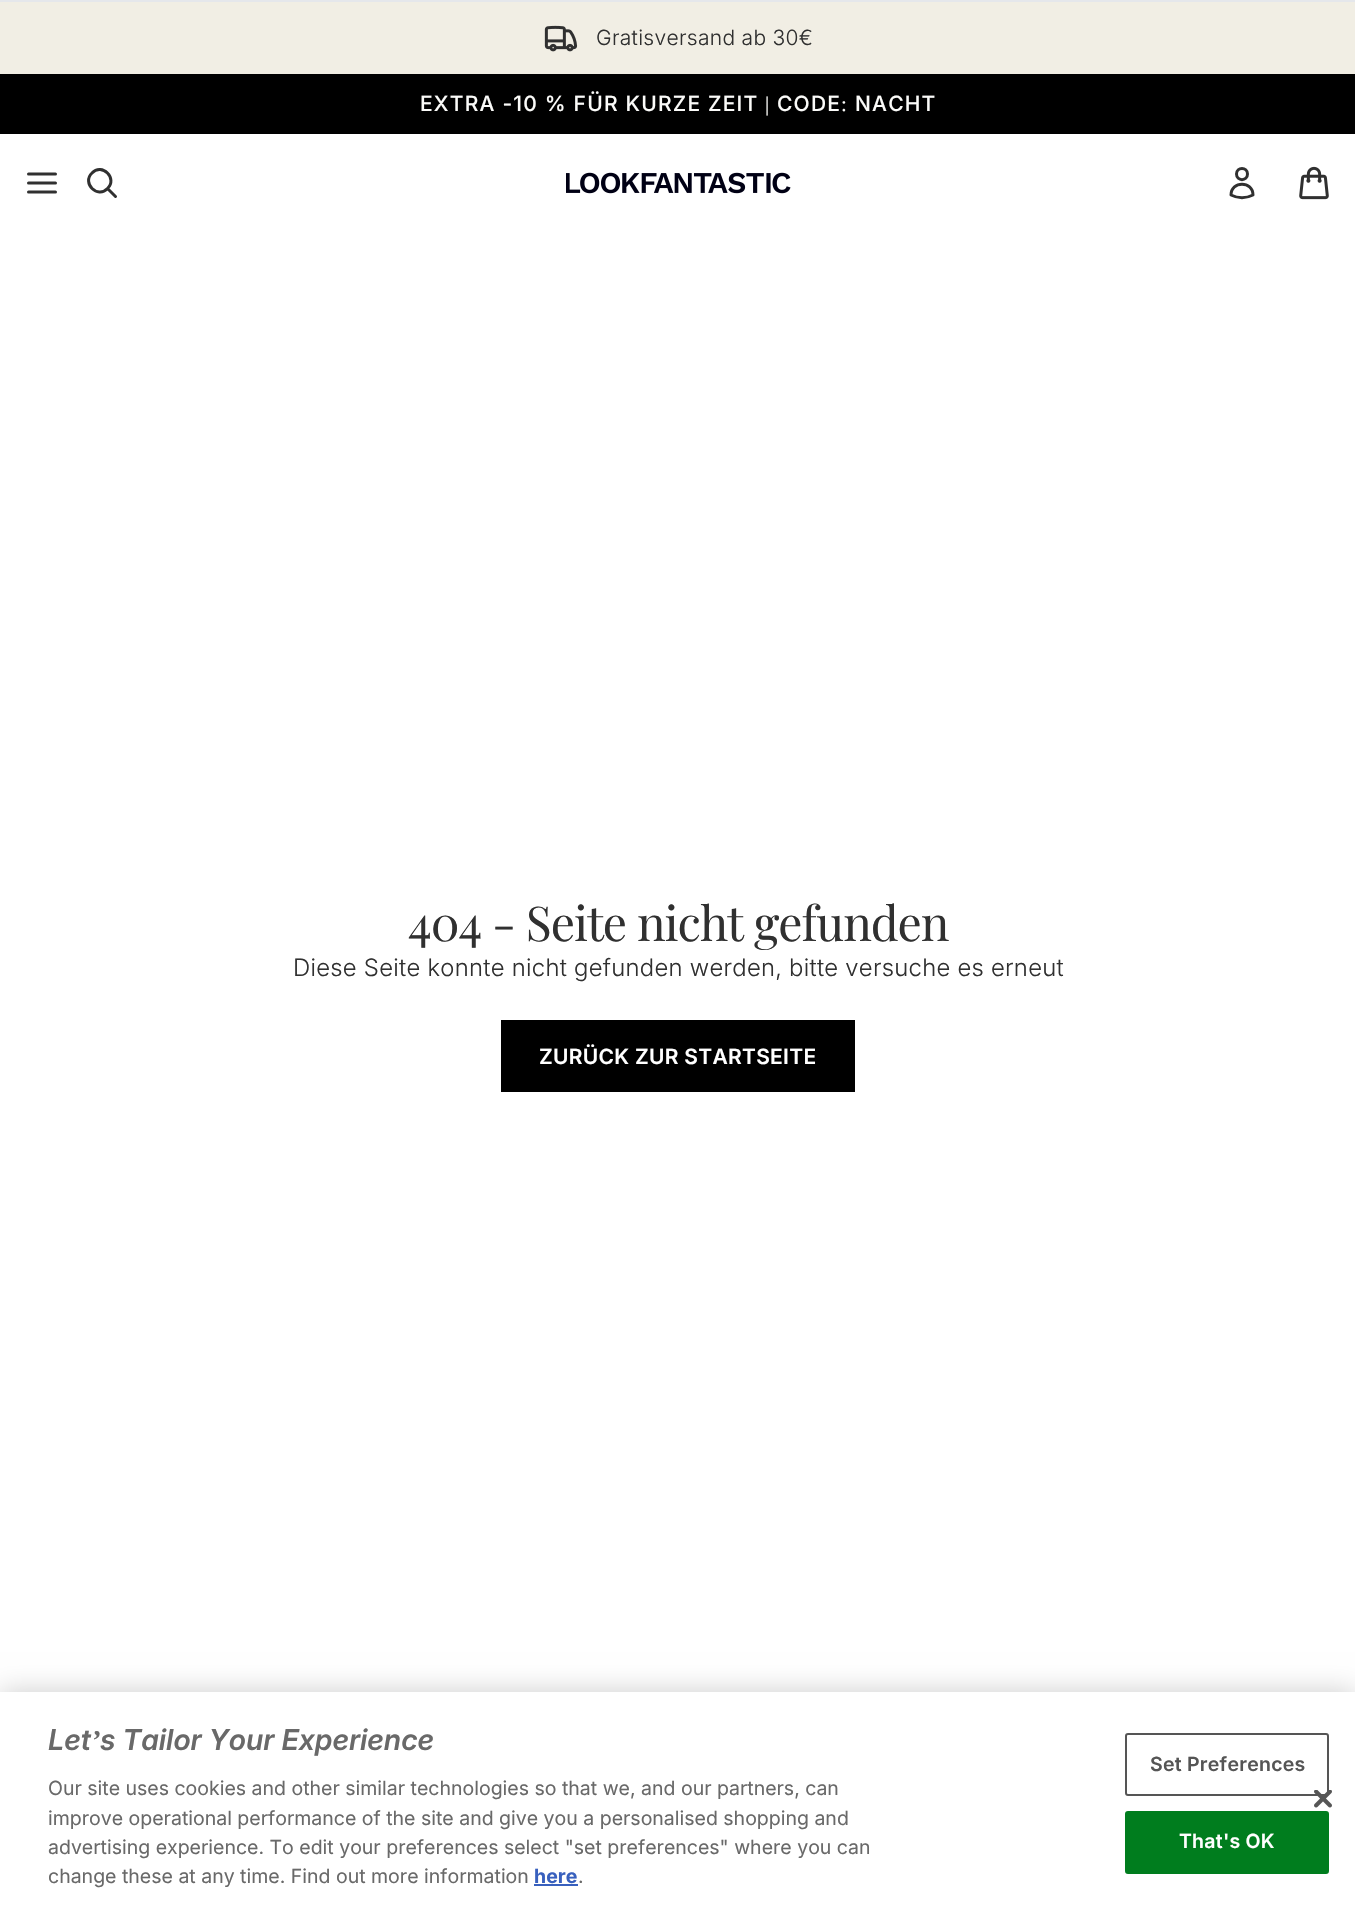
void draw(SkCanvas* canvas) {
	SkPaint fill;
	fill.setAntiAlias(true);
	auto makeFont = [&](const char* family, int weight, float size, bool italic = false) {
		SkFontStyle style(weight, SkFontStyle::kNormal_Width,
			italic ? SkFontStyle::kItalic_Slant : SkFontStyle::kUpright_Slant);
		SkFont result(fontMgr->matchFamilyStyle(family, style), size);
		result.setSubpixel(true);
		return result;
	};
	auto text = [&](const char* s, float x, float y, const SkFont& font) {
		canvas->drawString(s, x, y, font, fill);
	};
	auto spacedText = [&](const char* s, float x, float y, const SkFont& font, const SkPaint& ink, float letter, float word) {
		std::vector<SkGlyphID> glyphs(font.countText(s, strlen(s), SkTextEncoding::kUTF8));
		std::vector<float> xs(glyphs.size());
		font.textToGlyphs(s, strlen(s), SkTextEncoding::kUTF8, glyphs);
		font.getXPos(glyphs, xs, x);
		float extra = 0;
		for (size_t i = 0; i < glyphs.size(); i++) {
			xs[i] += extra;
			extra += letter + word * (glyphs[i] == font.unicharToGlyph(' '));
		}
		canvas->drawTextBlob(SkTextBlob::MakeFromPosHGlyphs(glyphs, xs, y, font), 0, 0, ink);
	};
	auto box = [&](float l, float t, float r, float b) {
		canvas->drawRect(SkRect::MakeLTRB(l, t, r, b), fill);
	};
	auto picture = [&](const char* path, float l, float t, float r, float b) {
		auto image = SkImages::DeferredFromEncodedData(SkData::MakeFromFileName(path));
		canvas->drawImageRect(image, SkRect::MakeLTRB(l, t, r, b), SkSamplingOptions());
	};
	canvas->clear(0xFFFFFFFF);
	fill.setColor(0xFFF1EEE4);
	box(0, 2, 1355, 74);
	fill.setColor(0xFFE5E7EB);
	box(0, 0, 1355, 2);
	picture("image0.png", 544, 25, 578, 52);
	fill.setColor(0xFF000000);
	box(0, 74, 1355, 134);
	fill.setStyle(SkPaint::kStroke_Style);
	fill.setStrokeWidth(3);
	fill.setStrokeCap(SkPaint::kRound_Cap);
	fill.setStrokeJoin(SkPaint::kRound_Join);
	fill.setColor(0xFF303030);
	canvas->drawPath(SkPathBuilder().moveTo(28.5f, 183).lineTo(55.5f, 183).moveTo(28.5f, 174).lineTo(55.5f, 174).moveTo(28.5f, 192).lineTo(55.5f, 192).detach(), fill);
	canvas->drawPath(SkPathBuilder().moveTo(115.5f, 196.5f).lineTo(107.5f, 188.5f).moveTo(107.5f, 188.5f).cubicTo(118, 178.5f, 102, 162.5f, 92, 173).cubicTo(81.5f, 183, 97.5f, 199, 107.5f, 188.5f).close().detach(), fill);
	picture("image1.png", 566, 172, 791, 194);
	canvas->drawPath(SkPathBuilder().moveTo(1247.5f, 174).cubicTo(1247.5f, 181.5f, 1236.5f, 181.5f, 1236.5f, 174).cubicTo(1236.5f, 166.5f, 1247.5f, 166.5f, 1247.5f, 174).close().moveTo(1231, 195).cubicTo(1231, 180.5f, 1253, 180.5f, 1253, 195).cubicTo(1246, 198.5f, 1238, 198.5f, 1231, 195).close().detach(), fill);
	picture("image2.png", 1299, 166, 1329, 200);
	fill.setStyle(SkPaint::kFill_Style);
	fill.setColor(0xFF000000);
	box(501, 1020, 855, 1092);
	fill.setColor(0x33000000);
	fill.setMaskFilter(SkMaskFilter::MakeBlur(kNormal_SkBlurStyle, 13.5f));
	canvas->drawRect(SkRect::MakeLTRB(0, 1692, 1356, 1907), fill);
	fill.setMaskFilter(nullptr);
	fill.setColor(0xFFFFFFFF);
	box(0, 1692, 1355, 1906);
	fill.setColor(0xFF3860BE);
	box(534, 1884, 578, 1886);
	fill.setStyle(SkPaint::kStroke_Style);
	fill.setStrokeWidth(2);
	fill.setStrokeCap(SkPaint::kButt_Cap);
	fill.setStrokeJoin(SkPaint::kMiter_Join);
	fill.setColor(0xFF555555);
	canvas->drawRoundRect(SkRect::MakeLTRB(1126, 1734, 1328, 1795), 2, 2, fill);
	fill.setStyle(SkPaint::kFill_Style);
	fill.setColor(0xFF007D1E);
	canvas->drawRoundRect(SkRect::MakeLTRB(1126, 1812, 1328, 1873), 2, 2, fill);
	fill.setStyle(SkPaint::kStroke_Style);
	canvas->drawRoundRect(SkRect::MakeLTRB(1126, 1812, 1328, 1873), 2, 2, fill);
	picture("image3.png", 1314, 1790, 1332, 1808);
	auto font1 = makeFont("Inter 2", 300, 21);
	fill.setStyle(SkPaint::kFill_Style);
	fill.setColor(0xFF303030);
	spacedText("Gratisversand ab 30€", 596, 45, font1, fill, 0.3f, 0);
	auto font2 = makeFont("Inter", 500, 21);
	fill.setColor(0xFFFBFBF9);
	spacedText("EXTRA -10 % FÜR KURZE ZEIT", 420, 111, font2, fill, 1.2f, 0);
	auto font3 = makeFont("Liberation Serif", 400, 21);
	spacedText("|", 765, 111, font3, fill, 1.2f, 0);
	spacedText("CODE", 777, 111, font2, fill, 1.2f, 0);
	spacedText(":", 841, 111, font3, fill, 1.2f, 0);
	spacedText("NACHT", 855, 111, font2, fill, 1.2f, 0);
	auto font4 = makeFont("Playfair Display", 400, 48);
	fill.setColor(0xFF303030);
	spacedText("404 - Seite nicht gefunden", 408, 941, font4, fill, -1.05f, 0);
	auto font5 = makeFont("Inter", 300, 24);
	spacedText("Diese Seite konnte nicht gefunden werden, bitte versuche es erneut", 293, 976, font5, fill, 0.3f, 0);
	auto font6 = makeFont("Inter", 600, 21);
	fill.setColor(0xFFFFFFFF);
	spacedText("ZURÜCK ZUR STARTSEITE", 539, 1064, font6, fill, 0.3f, 0);
	auto font7 = makeFont("Inter", 600, 28.75f, true);
	fill.setColor(0xFF696969);
	text("Let", 48, 1750, font7);
	auto font8 = makeFont("Liberation Serif", 700, 28.75f, true);
	text("’", 91, 1750, font8);
	text("s Tailor Your Experience", 100, 1750, font7);
	auto font9 = makeFont("Inter", 400, 19.5f);
	text("Our site uses cookies and other similar technologies so that we, and our partners, can", 48, 1795, font9);
	text("improve operational performance of the site and give you a personalised shopping and", 48, 1825, font9);
	text("advertising experience. To edit your preferences select \"set preferences\" where you can", 48, 1854, font9);
	text("change these at any time. Find out more information", 48, 1883, font9);
	auto font10 = makeFont("Inter", 700, 19.5f);
	fill.setColor(0xFF3860BE);
	text("here", 534, 1883, font10);
	fill.setColor(0xFF696969);
	text(".", 578, 1883, font9);
	auto font11 = makeFont("Inter", 600, 19.5f);
	fill.setColor(0xFF555555);
	spacedText("Set Preferences", 1150, 1771, font11, fill, 0.25f, 0);
	fill.setColor(0xFFFFFFFF);
	spacedText("That's OK", 1179, 1848, font11, fill, 0.25f, 0);
}
